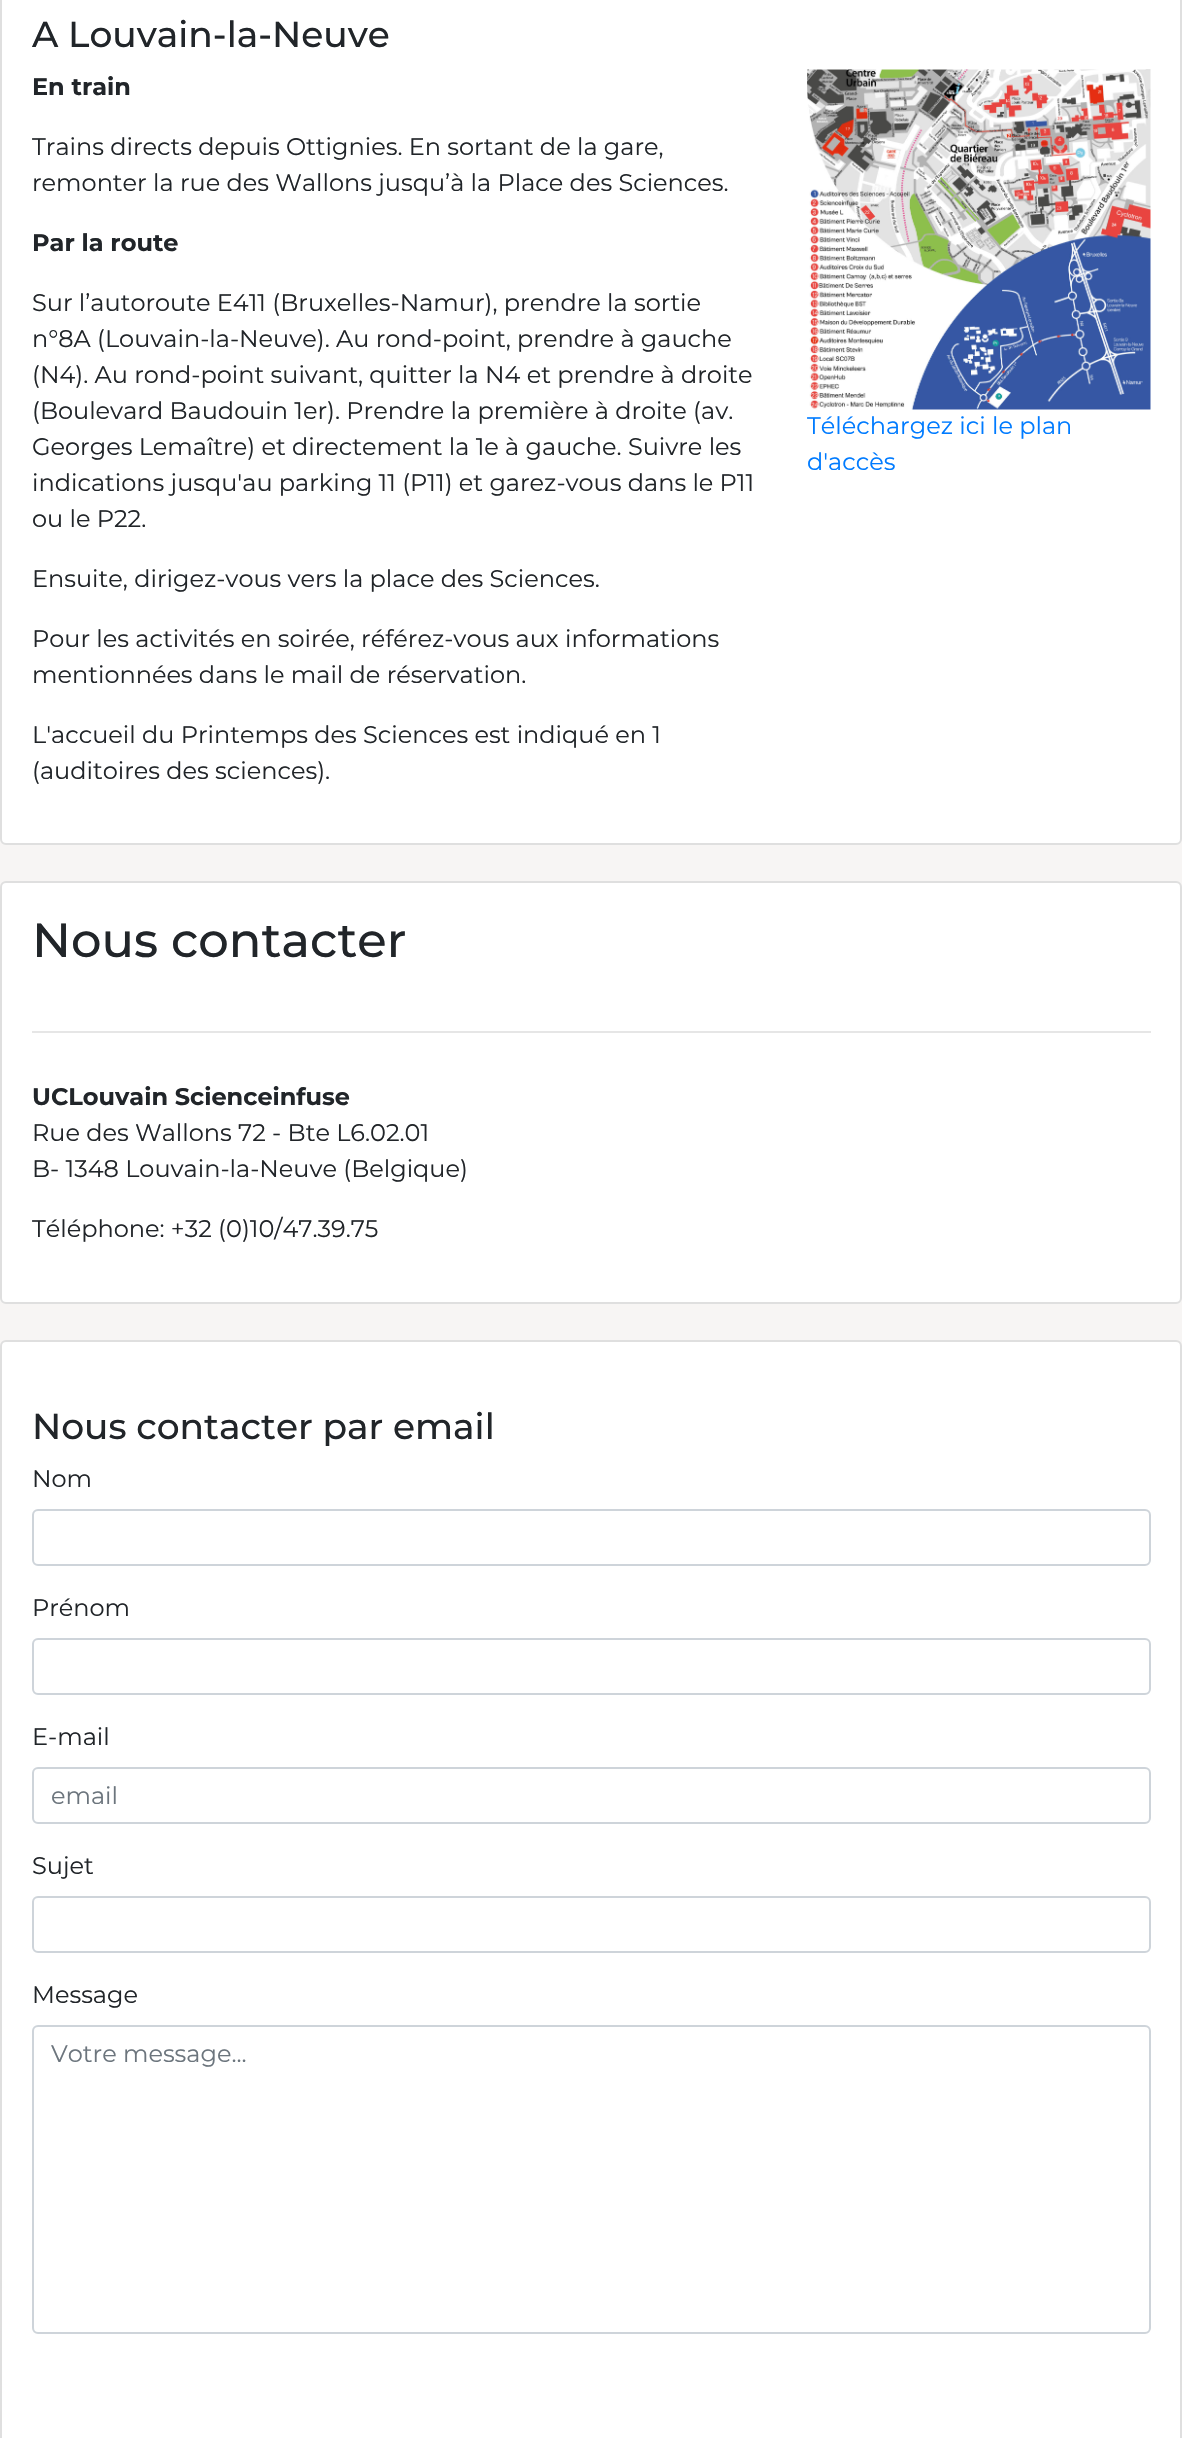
void draw(SkCanvas* canvas) {
	SkPaint fill;
	fill.setAntiAlias(true);
	auto makeFont = [&](const char* family, int weight, float size, bool italic = false) {
		SkFontStyle style(weight, SkFontStyle::kNormal_Width,
			italic ? SkFontStyle::kItalic_Slant : SkFontStyle::kUpright_Slant);
		SkFont result(fontMgr->matchFamilyStyle(family, style), size);
		result.setSubpixel(true);
		return result;
	};
	auto text = [&](const char* s, float x, float y, const SkFont& font) {
		canvas->drawString(s, x, y, font, fill);
	};
	auto box = [&](float l, float t, float r, float b) {
		canvas->drawRect(SkRect::MakeLTRB(l, t, r, b), fill);
	};
	auto picture = [&](const char* path, float l, float t, float r, float b) {
		auto image = SkImages::DeferredFromEncodedData(SkData::MakeFromFileName(path));
		canvas->drawImageRect(image, SkRect::MakeLTRB(l, t, r, b), SkSamplingOptions());
	};
	canvas->clear(0xFFF7F5F4);
	fill.setColor(0xFFFFFFFF);
	canvas->drawRoundRect(SkRect::MakeLTRB(1, -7, 1181, 844), 5, 5, fill);
	fill.setStyle(SkPaint::kStroke_Style);
	fill.setStrokeWidth(2);
	fill.setColor(0xFFDFDFDF);
	canvas->drawRoundRect(SkRect::MakeLTRB(1, -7, 1181, 844), 5, 5, fill);
	picture("image0.png", 807, 69, 1151, 410);
	fill.setStyle(SkPaint::kFill_Style);
	fill.setColor(0xFFFFFFFF);
	canvas->drawRoundRect(SkRect::MakeLTRB(1, 882, 1181, 1303), 5, 5, fill);
	fill.setStyle(SkPaint::kStroke_Style);
	fill.setColor(0xFFDFDFDF);
	canvas->drawRoundRect(SkRect::MakeLTRB(1, 882, 1181, 1303), 5, 5, fill);
	fill.setStyle(SkPaint::kFill_Style);
	fill.setColor(0xFFE6E6E6);
	box(32, 1031, 1151, 1033);
	fill.setColor(0xFFFFFFFF);
	canvas->drawRoundRect(SkRect::MakeLTRB(1, 1341, 1181, 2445), 5, 5, fill);
	fill.setStyle(SkPaint::kStroke_Style);
	fill.setColor(0xFFDFDFDF);
	canvas->drawRoundRect(SkRect::MakeLTRB(1, 1341, 1181, 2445), 5, 5, fill);
	fill.setColor(0xFFCED4DA);
	canvas->drawRoundRect(SkRect::MakeLTRB(33, 1510, 1150, 1565), 5, 5, fill);
	canvas->drawRoundRect(SkRect::MakeLTRB(33, 1639, 1150, 1694), 5, 5, fill);
	canvas->drawRoundRect(SkRect::MakeLTRB(33, 1768, 1150, 1823), 5, 5, fill);
	canvas->drawRoundRect(SkRect::MakeLTRB(33, 1897, 1150, 1952), 5, 5, fill);
	canvas->drawRoundRect(SkRect::MakeLTRB(33, 2026, 1150, 2333), 5, 5, fill);
	auto font1 = makeFont("Montserrat", 500, 36);
	fill.setStyle(SkPaint::kFill_Style);
	fill.setColor(0xFF212529);
	text("A Louvain-la-Neuve", 32, 47, font1);
	auto font2 = makeFont("Montserrat", 700, 24);
	text("En train", 32, 95, font2);
	auto font3 = makeFont("Montserrat", 400, 24);
	text("Trains directs depuis Ottignies. En sortant de la gare,", 32, 155, font3);
	text("remonter la rue des Wallons jusqu’à la Place des Sciences.", 32, 191, font3);
	text("Par la route", 32, 251, font2);
	text("Sur l’autoroute E411 (Bruxelles-Namur), prendre la sortie", 32, 311, font3);
	text("n°8A (Louvain-la-Neuve). Au rond-point, prendre à gauche", 32, 347, font3);
	text("(N4). Au rond-point suivant, quitter la N4 et prendre à droite", 32, 383, font3);
	text("(Boulevard Baudouin 1er). Prendre la première à droite (av.", 32, 419, font3);
	text("Georges Lemaître) et directement la 1e à gauche. Suivre les", 32, 455, font3);
	text("indications jusqu'au parking 11 (P11) et garez-vous dans le P11", 32, 491, font3);
	text("ou le P22.", 32, 527, font3);
	text("Ensuite, dirigez-vous vers la place des Sciences.", 32, 587, font3);
	text("Pour les activités en soirée, référez-vous aux informations", 32, 647, font3);
	text("mentionnées dans le mail de réservation.", 32, 683, font3);
	text("L'accueil du Printemps des Sciences est indiqué en 1", 32, 743, font3);
	text("(auditoires des sciences).", 32, 779, font3);
	fill.setColor(0xFF007BFF);
	text("Téléchargez ici le plan", 807, 434, font3);
	text("d'accès", 807, 470, font3);
	auto font4 = makeFont("Montserrat", 500, 48);
	fill.setColor(0xFF212529);
	text("Nous contacter", 32, 957, font4);
	text("UCLouvain Scienceinfuse", 32, 1105, font2);
	text("Rue des Wallons 72 - Bte L6.02.01", 32, 1141, font3);
	text("B- 1348 Louvain-la-Neuve (Belgique)", 32, 1177, font3);
	text("Téléphone: +32 (0)10/47.39.75", 32, 1237, font3);
	text("Nous contacter par email", 32, 1439, font1);
	text("Nom", 32, 1487, font3);
	text("Prénom", 32, 1616, font3);
	text("E-mail", 32, 1745, font3);
	fill.setColor(0xFF6C757D);
	text("email", 51, 1804, font3);
	fill.setColor(0xFF212529);
	text("Sujet", 32, 1874, font3);
	text("Message", 32, 2003, font3);
	fill.setColor(0xFF6C757D);
	text("Votre message...", 51, 2062, font3);
}
